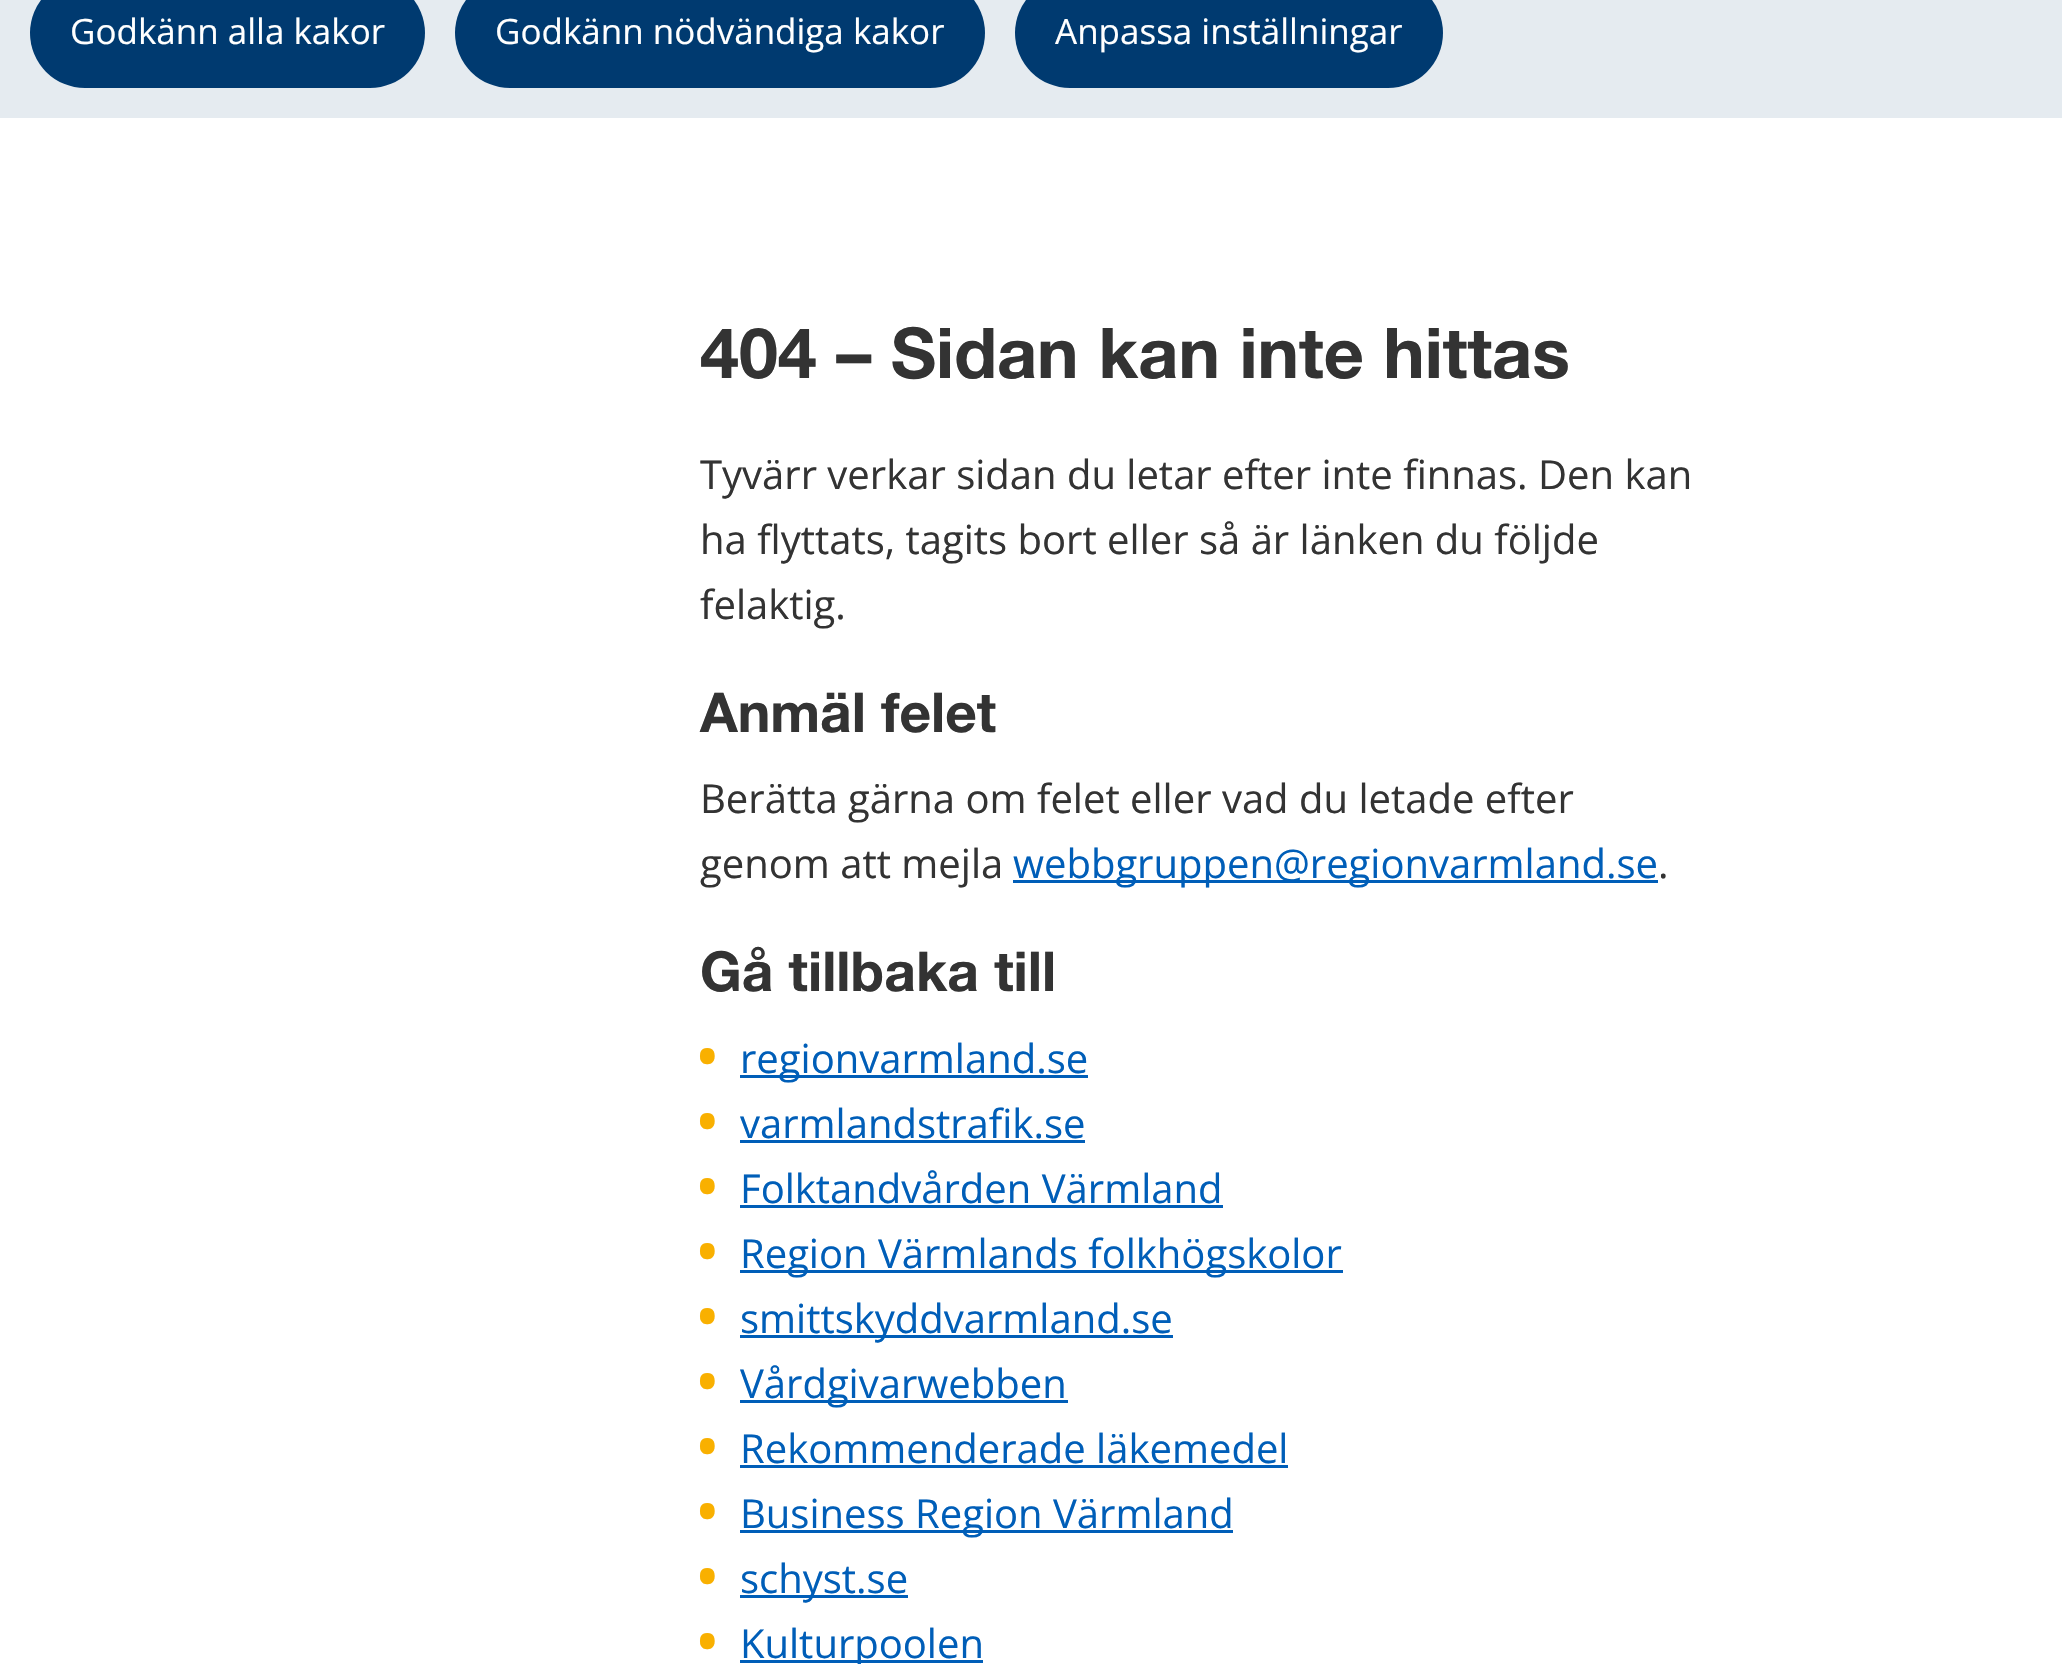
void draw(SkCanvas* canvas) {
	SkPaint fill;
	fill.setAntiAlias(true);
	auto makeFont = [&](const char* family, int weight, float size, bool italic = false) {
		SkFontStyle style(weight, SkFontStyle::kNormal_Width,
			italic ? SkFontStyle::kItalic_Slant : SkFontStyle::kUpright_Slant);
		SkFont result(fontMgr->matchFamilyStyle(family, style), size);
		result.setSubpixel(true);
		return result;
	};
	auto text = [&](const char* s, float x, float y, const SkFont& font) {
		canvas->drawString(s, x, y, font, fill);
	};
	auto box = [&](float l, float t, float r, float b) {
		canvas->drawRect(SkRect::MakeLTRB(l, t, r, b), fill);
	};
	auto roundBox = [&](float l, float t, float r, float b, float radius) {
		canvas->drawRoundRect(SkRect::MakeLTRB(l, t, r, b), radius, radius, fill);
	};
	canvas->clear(0xFFFFFFFF);
	fill.setColor(0xFFE5EBF0);
	box(0, 0, 2062, 118);
	fill.setColor(0xFF003A70);
	roundBox(30, -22, 425, 88, 55);
	roundBox(455, -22, 985, 88, 55);
	roundBox(1015, -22, 1443, 88, 55);
	fill.setColor(0xFF005EB8);
	box(1013, 880, 1658, 883);
	box(740, 1075, 1088, 1078);
	box(740, 1140, 1085, 1143);
	box(740, 1205, 1223, 1208);
	box(740, 1270, 1343, 1273);
	box(740, 1335, 1173, 1338);
	box(740, 1400, 1068, 1403);
	box(740, 1465, 1288, 1468);
	box(740, 1530, 1233, 1533);
	box(740, 1595, 908, 1598);
	box(740, 1660, 983, 1663);
	auto font1 = makeFont("Open Sans", 400, 35);
	fill.setColor(0xFFFFFFFF);
	text("Godkänn alla kakor", 70, 44, font1);
	text("Godkänn nödvändiga kakor", 495, 44, font1);
	text("Anpassa inställningar", 1055, 44, font1);
	auto font2 = makeFont("helvetica neue", 400, 70);
	fill.setColor(0xFF333333);
	text("404 – Sidan kan inte hittas", 700, 378, font2);
	auto font3 = makeFont("Open Sans", 400, 40);
	text("Tyvärr verkar sidan du letar efter inte finnas. Den kan", 700, 489, font3);
	text("ha flyttats, tagits bort eller så är länken du följde", 700, 554, font3);
	text("felaktig.", 700, 619, font3);
	auto font4 = makeFont("helvetica neue", 400, 55);
	text("Anmäl felet", 700, 732, font4);
	text("Berätta gärna om felet eller vad du letade efter", 700, 813, font3);
	text("genom att mejla", 700, 878, font3);
	fill.setColor(0xFF005EB8);
	text("webbgruppen@regionvarmland.se", 1013, 878, font3);
	fill.setColor(0xFF333333);
	text(".", 1658, 878, font3);
	text("Gå tillbaka till", 700, 991, font4);
	auto font5 = makeFont("Open Sans", 600, 60);
	fill.setColor(0xFFF9B000);
	text("•", 696, 1078, font5);
	fill.setColor(0xFF005EB8);
	text("regionvarmland.se", 740, 1073, font3);
	fill.setColor(0xFFF9B000);
	text("•", 696, 1143, font5);
	fill.setColor(0xFF005EB8);
	text("varmlandstrafik.se", 740, 1138, font3);
	fill.setColor(0xFFF9B000);
	text("•", 696, 1208, font5);
	fill.setColor(0xFF005EB8);
	text("Folktandvården Värmland", 740, 1203, font3);
	fill.setColor(0xFFF9B000);
	text("•", 696, 1273, font5);
	fill.setColor(0xFF005EB8);
	text("Region Värmlands folkhögskolor", 740, 1268, font3);
	fill.setColor(0xFFF9B000);
	text("•", 696, 1338, font5);
	fill.setColor(0xFF005EB8);
	text("smittskyddvarmland.se", 740, 1333, font3);
	fill.setColor(0xFFF9B000);
	text("•", 696, 1403, font5);
	fill.setColor(0xFF005EB8);
	text("Vårdgivarwebben", 740, 1398, font3);
	fill.setColor(0xFFF9B000);
	text("•", 696, 1468, font5);
	fill.setColor(0xFF005EB8);
	text("Rekommenderade läkemedel", 740, 1463, font3);
	fill.setColor(0xFFF9B000);
	text("•", 696, 1533, font5);
	fill.setColor(0xFF005EB8);
	text("Business Region Värmland", 740, 1528, font3);
	fill.setColor(0xFFF9B000);
	text("•", 696, 1598, font5);
	fill.setColor(0xFF005EB8);
	text("schyst.se", 740, 1593, font3);
	fill.setColor(0xFFF9B000);
	text("•", 696, 1663, font5);
	fill.setColor(0xFF005EB8);
	text("Kulturpoolen", 740, 1658, font3);
}
